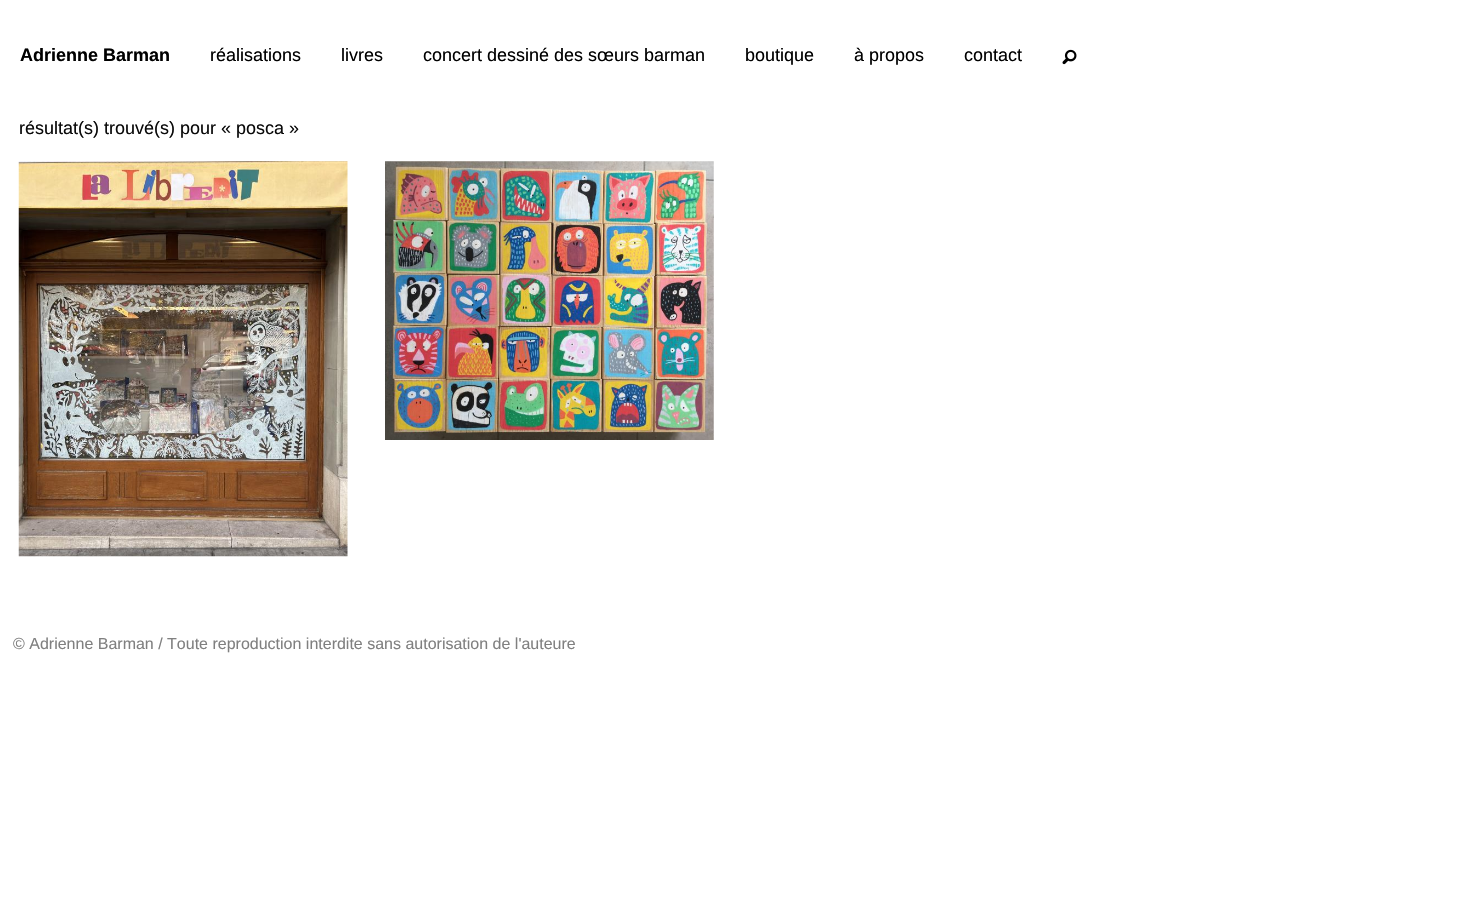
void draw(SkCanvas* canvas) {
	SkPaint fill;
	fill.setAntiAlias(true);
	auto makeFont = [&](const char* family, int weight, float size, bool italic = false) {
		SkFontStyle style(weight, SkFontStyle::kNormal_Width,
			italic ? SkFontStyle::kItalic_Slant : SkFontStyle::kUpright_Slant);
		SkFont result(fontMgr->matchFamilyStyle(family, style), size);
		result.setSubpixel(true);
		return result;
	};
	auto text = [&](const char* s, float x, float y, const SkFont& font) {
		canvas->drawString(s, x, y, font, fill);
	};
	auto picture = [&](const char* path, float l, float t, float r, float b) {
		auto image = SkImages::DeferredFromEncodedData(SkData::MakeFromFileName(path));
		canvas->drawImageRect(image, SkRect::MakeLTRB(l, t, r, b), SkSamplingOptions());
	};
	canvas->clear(0xFFFFFFFF);
	picture("image0.png", 1062, 49, 1077, 65);
	picture("image1.png", 18, 161, 348, 557);
	picture("image2.png", 385, 161, 714, 440);
	auto font1 = makeFont("Liberation Sans", 700, 18);
	fill.setColor(0xFF000000);
	text("Adrienne Barman", 20, 61, font1);
	auto font2 = makeFont("Liberation Sans", 400, 18);
	text("réalisations", 210, 61, font2);
	text("livres", 341, 61, font2);
	text("concert dessiné des sœurs barman", 423, 61, font2);
	text("boutique", 745, 61, font2);
	text("à propos", 854, 61, font2);
	text("contact", 964, 61, font2);
	fill.setColor(0xFF0A0A0A);
	text("résultat(s) trouvé(s) pour « posca »", 19, 134, font2);
	auto font3 = makeFont("Liberation Sans", 400, 16);
	fill.setColor(0xFF808080);
	text("© Adrienne Barman / Toute reproduction interdite sans autorisation de l'auteure", 13, 649, font3);
}
